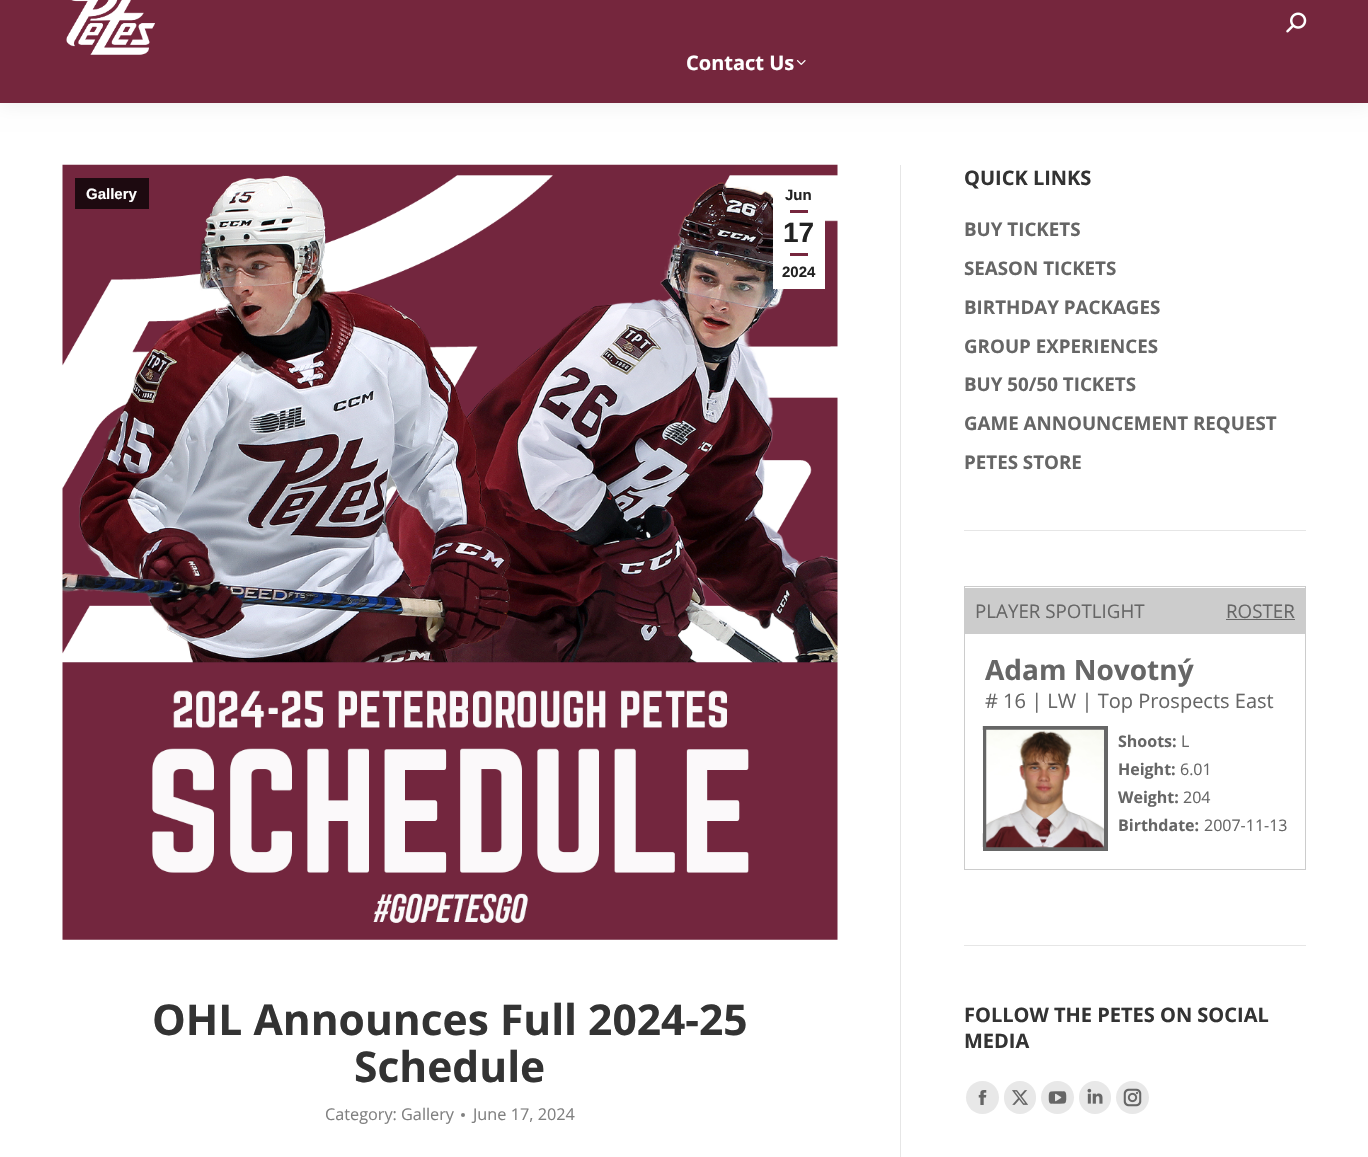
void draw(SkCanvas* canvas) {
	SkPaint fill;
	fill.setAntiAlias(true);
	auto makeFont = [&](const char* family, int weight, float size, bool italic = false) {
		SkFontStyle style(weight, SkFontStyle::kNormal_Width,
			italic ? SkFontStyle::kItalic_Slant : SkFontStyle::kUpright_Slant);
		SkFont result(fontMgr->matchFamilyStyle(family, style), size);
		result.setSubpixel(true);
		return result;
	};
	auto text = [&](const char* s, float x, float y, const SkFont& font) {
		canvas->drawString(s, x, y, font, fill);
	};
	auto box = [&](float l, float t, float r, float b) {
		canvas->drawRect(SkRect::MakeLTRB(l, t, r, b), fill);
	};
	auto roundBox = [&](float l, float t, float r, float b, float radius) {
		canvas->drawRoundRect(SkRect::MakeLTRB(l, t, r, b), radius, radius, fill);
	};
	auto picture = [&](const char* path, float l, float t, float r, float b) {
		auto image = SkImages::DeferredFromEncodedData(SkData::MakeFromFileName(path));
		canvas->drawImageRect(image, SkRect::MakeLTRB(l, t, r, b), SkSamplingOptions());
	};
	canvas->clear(0xFFFFFFFF);
	fill.setColor(0x12000000);
	fill.setMaskFilter(SkMaskFilter::MakeBlur(kNormal_SkBlurStyle, 9.5f));
	canvas->drawRect(SkRect::MakeLTRB(-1, -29, 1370, 104), fill);
	fill.setMaskFilter(nullptr);
	fill.setColor(0xFF75263D);
	box(0, 0, 1368, 103);
	picture("image0.png", 66, 0, 155, 55);
	picture("image1.png", 1286, 12, 1307, 33);
	picture("image2.png", 796, 60, 806, 65);
	picture("image3.png", 62, 164, 838, 940);
	fill.setColor(0xFF1D0A10);
	box(75, 178, 149, 209);
	fill.setColor(0xFFFFFFFF);
	box(773, 196, 825, 289);
	fill.setColor(0xFF75263D);
	box(790, 210, 808, 213);
	box(790, 253, 808, 256);
	fill.setColor(0xFF808080);
	canvas->drawCircle(463, 1115, 2, fill);
	fill.setColor(0xFFE6E6E6);
	box(900, 165, 901, 1157);
	box(964, 530, 1306, 531);
	fill.setStyle(SkPaint::kStroke_Style);
	fill.setStrokeWidth(1);
	fill.setColor(0xFFCCCCCC);
	canvas->drawRect(SkRect::MakeLTRB(964.5f, 586.5f, 1305.5f, 869.5f), fill);
	fill.setStyle(SkPaint::kFill_Style);
	box(965, 588, 1305, 634);
	fill.setColor(0xFF666666);
	box(1226, 619, 1295, 620);
	picture("image4.png", 982, 726, 1104, 847);
	fill.setStyle(SkPaint::kStroke_Style);
	fill.setStrokeWidth(4);
	canvas->drawRect(SkRect::MakeLTRB(985, 728, 1106, 849), fill);
	picture("image5.png", 986, 729, 1104, 848);
	fill.setStyle(SkPaint::kFill_Style);
	fill.setColor(0xFFE6E6E6);
	box(964, 945, 1306, 946);
	fill.setColor(0xFFE8E8E8);
	canvas->drawCircle(982.5f, 1097.5f, 16.5f, fill);
	picture("image6.png", 978, 1090, 987, 1105);
	roundBox(1004, 1081, 1036, 1114, 16);
	picture("image7.png", 1012, 1090, 1028, 1105);
	canvas->drawCircle(1057.5f, 1097.5f, 16.5f, fill);
	picture("image8.png", 1048, 1091, 1067, 1104);
	roundBox(1079, 1081, 1111, 1114, 16);
	picture("image9.png", 1087, 1088, 1103, 1104);
	canvas->drawCircle(1132.5f, 1097.5f, 16.5f, fill);
	picture("image10.png", 1123, 1088, 1142, 1107);
	auto font1 = makeFont("Open Sans", 700, 20);
	fill.setColor(0xFFFFFFFF);
	text("Contact Us", 686, 70, font1);
	auto font2 = makeFont("Liberation Sans", 700, 15);
	text("Gallery", 86, 199, font2);
	fill.setColor(0xFF222222);
	text("Jun", 785, 200, font2);
	auto font3 = makeFont("Liberation Sans", 700, 28);
	text("17", 783, 242, font3);
	text("2024", 782, 277, font2);
	auto font4 = makeFont("Open Sans", 700, 42.5f);
	fill.setColor(0xFF333333);
	text("OHL Announces Full 2024-25", 152, 1035, font4);
	text("Schedule", 354, 1082, font4);
	auto font5 = makeFont("Open Sans", 400, 16.25f);
	fill.setColor(0xFF808080);
	text("Category: Gallery", 325, 1120, font5);
	text("June 17, 2024", 473, 1120, font5);
	fill.setColor(0xFF333333);
	text("QUICK LINKS", 964, 185, font1);
	auto font6 = makeFont("Open Sans", 700, 18.75f);
	fill.setColor(0xFF666666);
	text("BUY TICKETS", 964, 236, font6);
	text("SEASON TICKETS", 964, 275, font6);
	text("BIRTHDAY PACKAGES", 964, 314, font6);
	text("GROUP EXPERIENCES", 964, 353, font6);
	text("BUY 50/50 TICKETS", 964, 391, font6);
	text("GAME ANNOUNCEMENT REQUEST", 964, 430, font6);
	text("PETES STORE", 964, 469, font6);
	auto font7 = makeFont("Open Sans", 400, 18.75f);
	text("PLAYER SPOTLIGHT", 975, 618, font7);
	text("ROSTER", 1226, 618, font7);
	auto font8 = makeFont("Open Sans", 700, 28);
	text("Adam Novotný", 985, 680, font8);
	auto font9 = makeFont("Open Sans", 400, 20);
	text("# 16 | LW | Top Prospects East", 985, 708, font9);
	auto font10 = makeFont("Open Sans", 700, 16);
	text("Shoots:", 1118, 747, font10);
	auto font11 = makeFont("Open Sans", 400, 16);
	text("L", 1181, 747, font11);
	text("Height:", 1118, 775, font10);
	text("6.01", 1180, 775, font11);
	text("Weight:", 1118, 803, font10);
	text("204", 1183, 803, font11);
	text("Birthdate:", 1118, 831, font10);
	text("2007-11-13", 1204, 831, font11);
	fill.setColor(0xFF333333);
	text("FOLLOW THE PETES ON SOCIAL", 964, 1022, font1);
	text("MEDIA", 964, 1048, font1);
}
